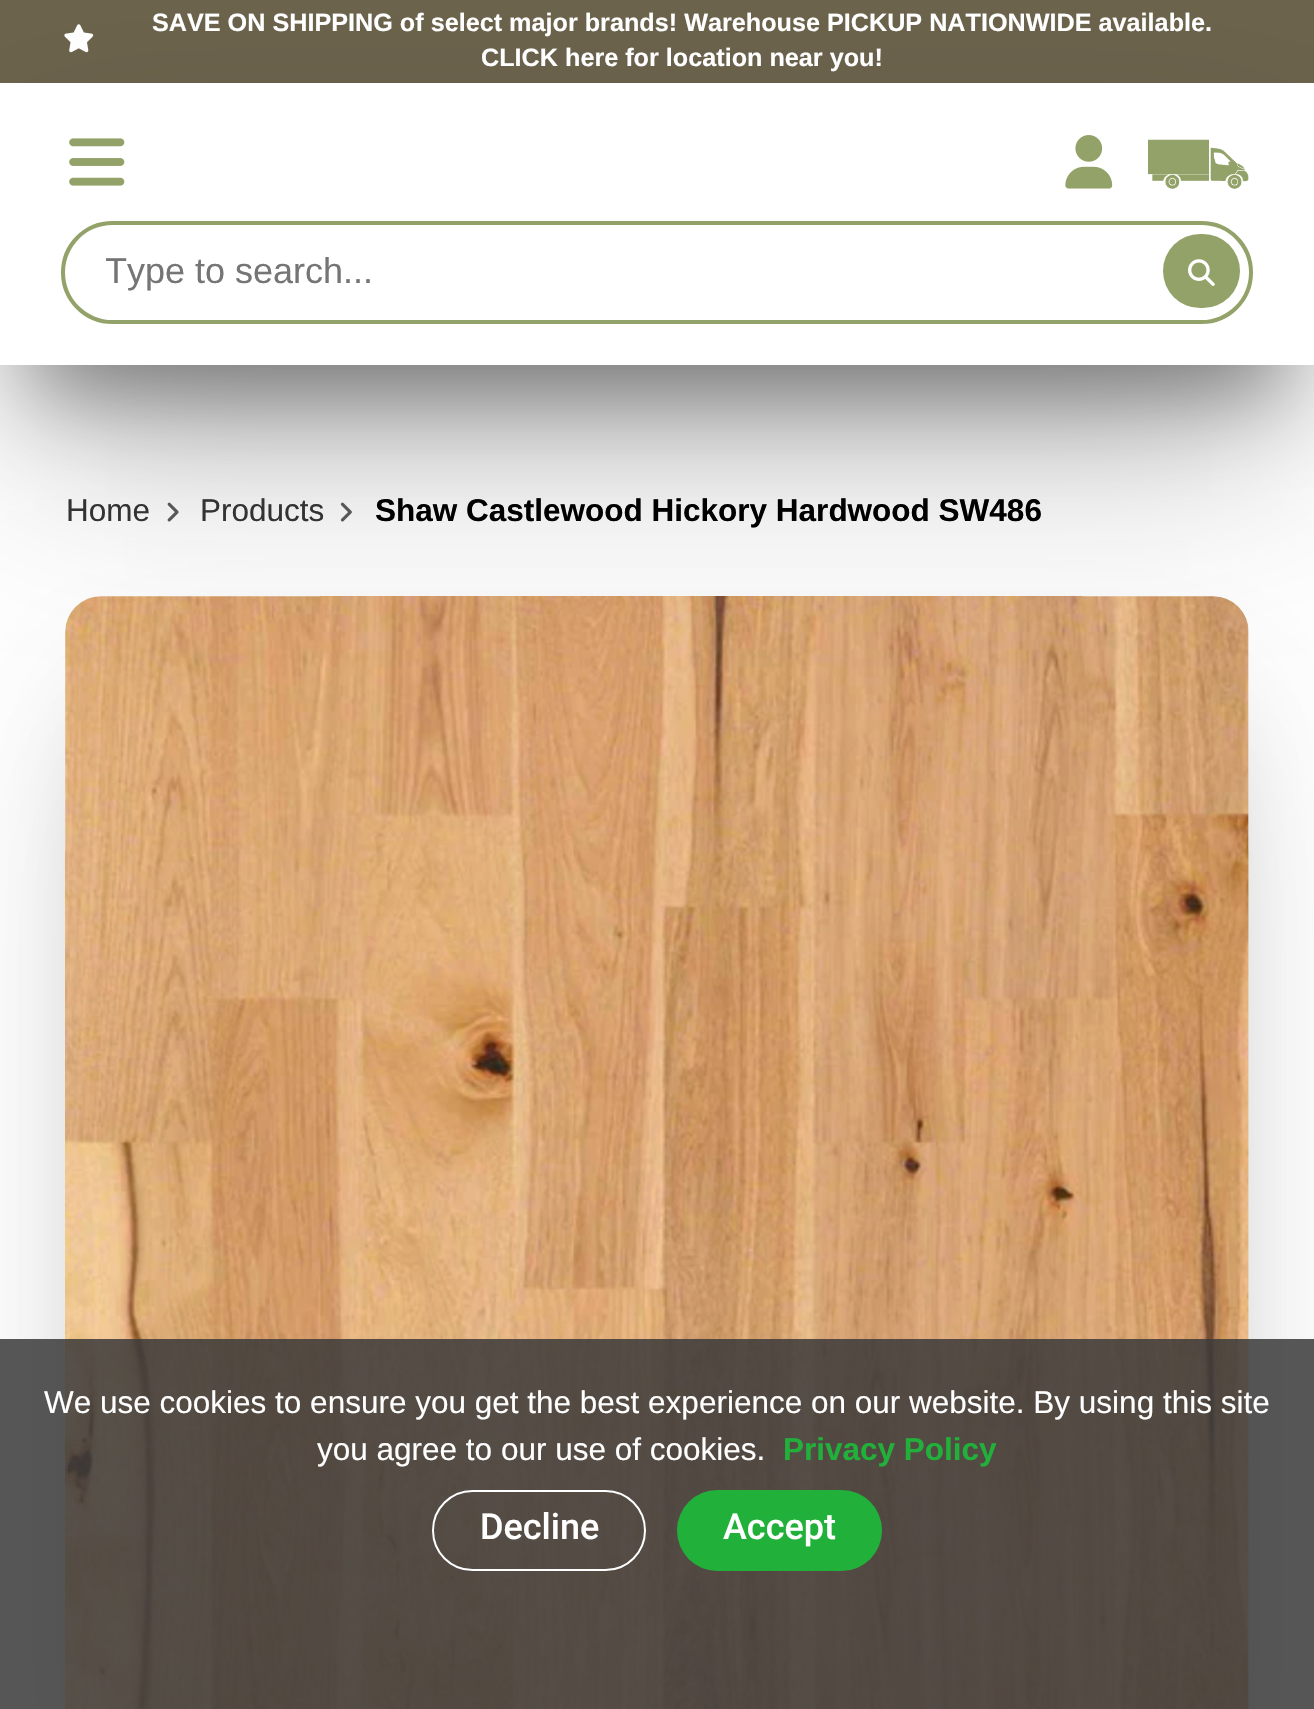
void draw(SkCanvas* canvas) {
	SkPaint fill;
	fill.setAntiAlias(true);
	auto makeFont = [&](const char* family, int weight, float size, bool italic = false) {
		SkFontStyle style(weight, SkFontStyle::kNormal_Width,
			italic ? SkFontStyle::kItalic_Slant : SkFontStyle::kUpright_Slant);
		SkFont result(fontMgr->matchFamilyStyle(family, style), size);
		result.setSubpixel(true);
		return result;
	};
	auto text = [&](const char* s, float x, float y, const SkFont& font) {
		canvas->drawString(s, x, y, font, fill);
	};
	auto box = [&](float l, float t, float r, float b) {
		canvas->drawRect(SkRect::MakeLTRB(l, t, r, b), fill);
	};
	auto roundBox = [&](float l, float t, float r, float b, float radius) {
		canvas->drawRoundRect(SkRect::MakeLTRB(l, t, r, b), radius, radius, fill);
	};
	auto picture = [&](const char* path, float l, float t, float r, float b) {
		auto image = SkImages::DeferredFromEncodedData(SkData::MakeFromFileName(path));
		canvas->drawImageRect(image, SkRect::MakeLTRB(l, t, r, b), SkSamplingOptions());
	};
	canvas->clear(0xFFFFFFFF);
	fill.setColor(0xFF6C634D);
	box(0, 0, 1314, 83);
	picture("image0.png", 64, 24, 94, 53);
	picture("image6.png", 167, 502, 179, 522);
	picture("image7.png", 340, 502, 352, 522);
	fill.setColor(0x66000000);
	fill.setMaskFilter(SkMaskFilter::MakeBlur(kNormal_SkBlurStyle, 43.5f));
	canvas->drawRect(SkRect::MakeLTRB(32, 173, 1283, 392), fill);
	fill.setMaskFilter(nullptr);
	fill.setColor(0x4D000000);
	fill.setMaskFilter(SkMaskFilter::MakeBlur(kNormal_SkBlurStyle, 59));
	canvas->drawRect(SkRect::MakeLTRB(124, 716, 1190, 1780), fill);
	fill.setMaskFilter(nullptr);
	fill.setColor(0x1A000000);
	fill.setMaskFilter(SkMaskFilter::MakeBlur(kNormal_SkBlurStyle, 98.5f));
	canvas->drawRect(SkRect::MakeLTRB(106, 734, 1211, 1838), fill);
	fill.setMaskFilter(nullptr);
	picture("image5.png", 65, 596, 1249, 1709);
	fill.setColor(0x4D000000);
	fill.setMaskFilter(SkMaskFilter::MakeBlur(kNormal_SkBlurStyle, 98.5f));
	canvas->drawRect(SkRect::MakeLTRB(32, 214, 1283, 432), fill);
	fill.setMaskFilter(nullptr);
	fill.setColor(0xFFFFFFFF);
	box(0, 83, 1314, 365);
	picture("image1.png", 69, 138, 125, 186);
	picture("image2.png", 1065, 135, 1113, 189);
	picture("image3.png", 1148, 139, 1249, 189);
	fill.setStyle(SkPaint::kStroke_Style);
	fill.setStrokeWidth(5);
	fill.setColor(0xFF92A268);
	canvas->drawRoundRect(SkRect::MakeLTRB(63.5f, 223.5f, 1250.5f, 321.5f), 49, 49, fill);
	fill.setStyle(SkPaint::kFill_Style);
	fill.setColor(0xFFFFFFFF);
	roundBox(65, 225, 1249, 320, 47.5f);
	fill.setColor(0xFF92A268);
	roundBox(1163, 234, 1240, 308, 37);
	picture("image4.png", 1188, 259, 1215, 286);
	fill.setColor(0xD93B3939);
	box(0, 1339, 1314, 1709);
	fill.setStyle(SkPaint::kStroke_Style);
	fill.setStrokeWidth(2);
	fill.setColor(0xFFFFFFFF);
	canvas->drawRoundRect(SkRect::MakeLTRB(433, 1491, 645, 1570), 39.5f, 39.5f, fill);
	fill.setStyle(SkPaint::kFill_Style);
	fill.setColor(0xFF21B13B);
	roundBox(677, 1490, 882, 1571, 40.5f);
	auto font1 = makeFont("Liberation Sans", 700, 25.2f);
	fill.setColor(0xFFFFFFFF);
	text("SAVE ON SHIPPING of select major brands! Warehouse PICKUP NATIONWIDE available.", 152, 31, font1);
	text("CLICK here for location near you!", 481, 66, font1);
	canvas->save();
	canvas->clipRect(SkRect::MakeLTRB(106, 252, 1208, 293));
	auto font2 = makeFont("Liberation Sans", 400, 36);
	fill.setColor(0xFF757575);
	text("Type to search...", 105, 283, font2);
	canvas->restore();
	auto font3 = makeFont("Liberation Sans", 400, 31.5f);
	fill.setColor(0xFF333333);
	text("Home", 66, 521, font3);
	text("Products", 200, 521, font3);
	auto font4 = makeFont("Liberation Sans", 700, 31.5f);
	fill.setColor(0xFF000000);
	text("Shaw Castlewood Hickory Hardwood SW486", 375, 521, font4);
	fill.setColor(0xFFFFFFFF);
	text("We use cookies to ensure you get the best experience on our website. By using this site", 44, 1413, font3);
	text("you agree to our use of cookies.", 317, 1460, font3);
	fill.setColor(0xFF21B13B);
	text("Privacy Policy", 783, 1460, font4);
	auto font5 = makeFont("Roboto", 500, 36);
	fill.setColor(0xFFFFFFFF);
	text("Decline", 480, 1539, font5);
	text("Accept", 723, 1539, font5);
}
